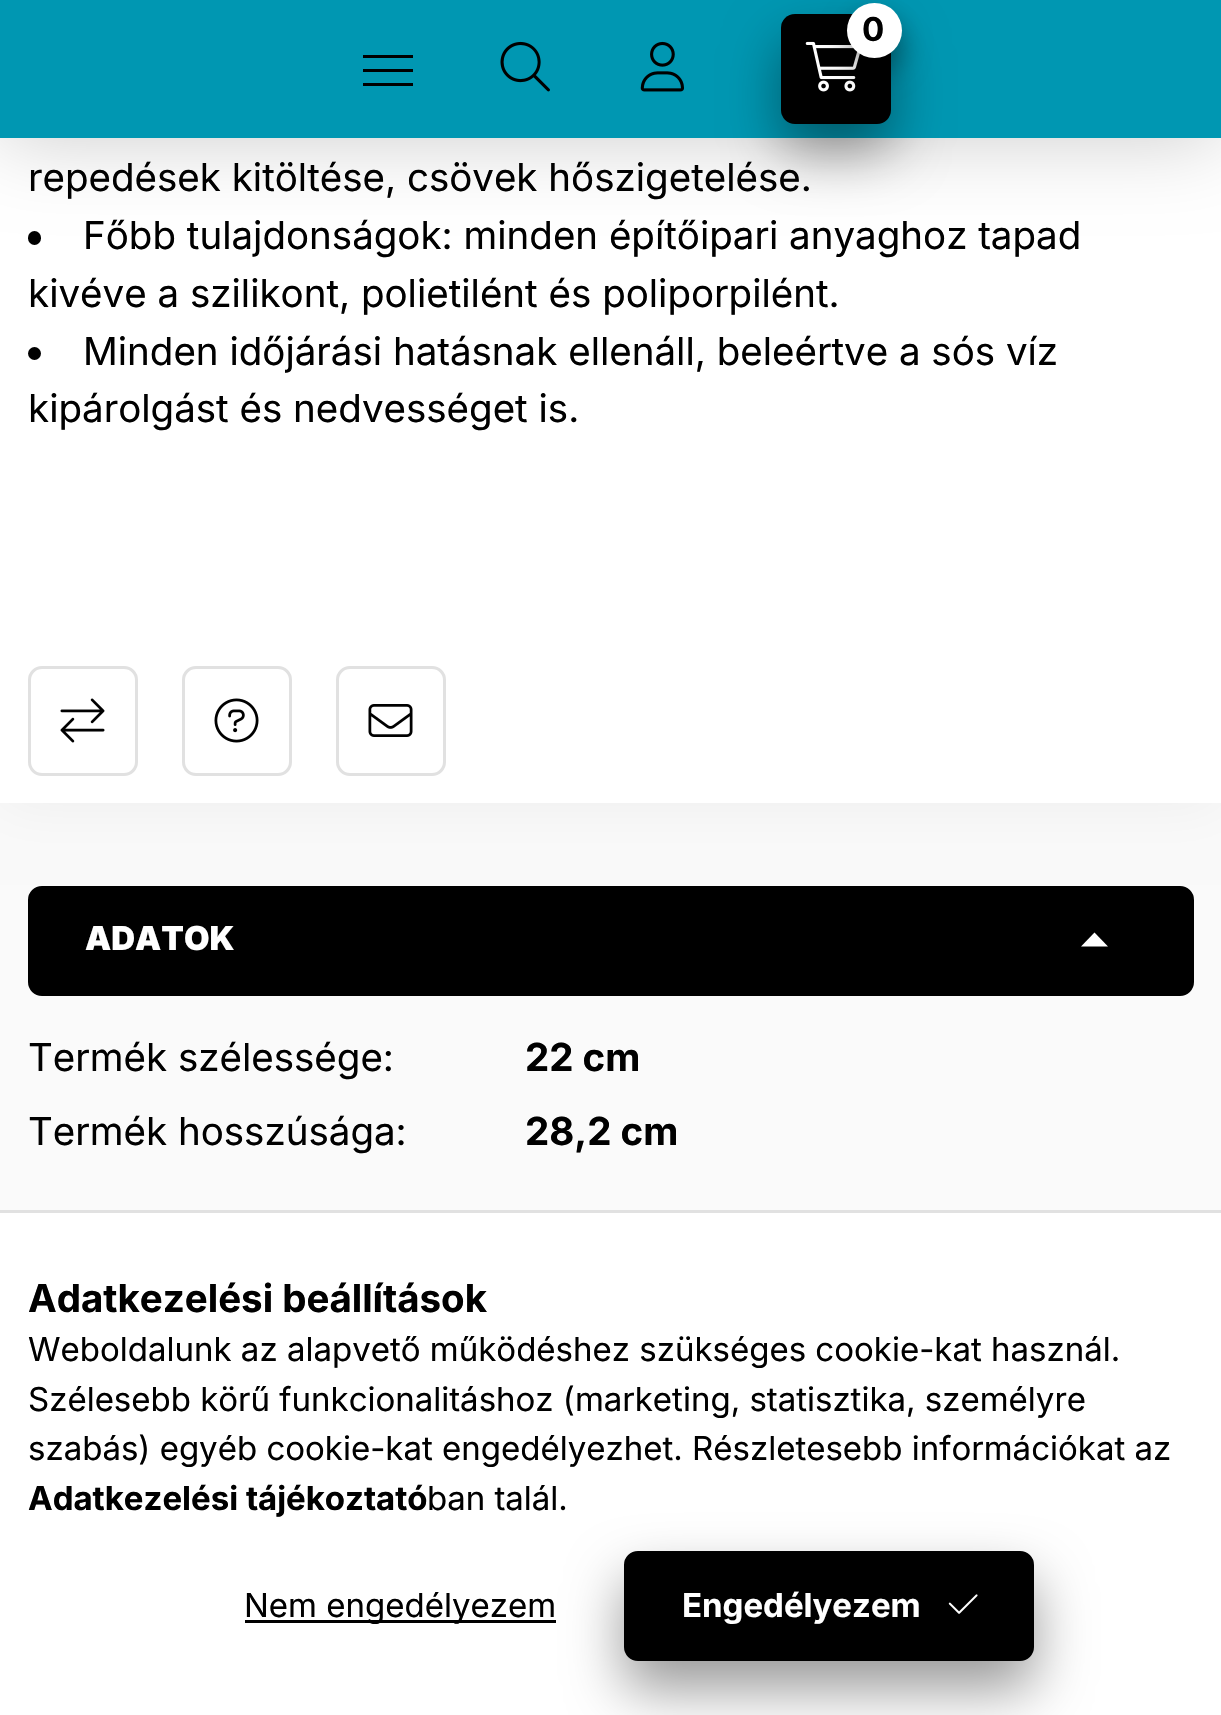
void draw(SkCanvas* canvas) {
	SkPaint fill;
	fill.setAntiAlias(true);
	auto makeFont = [&](const char* family, int weight, float size, bool italic = false) {
		SkFontStyle style(weight, SkFontStyle::kNormal_Width,
			italic ? SkFontStyle::kItalic_Slant : SkFontStyle::kUpright_Slant);
		SkFont result(fontMgr->matchFamilyStyle(family, style), size);
		result.setSubpixel(true);
		return result;
	};
	auto text = [&](const char* s, float x, float y, const SkFont& font) {
		canvas->drawString(s, x, y, font, fill);
	};
	auto box = [&](float l, float t, float r, float b) {
		canvas->drawRect(SkRect::MakeLTRB(l, t, r, b), fill);
	};
	auto roundBox = [&](float l, float t, float r, float b, float radius) {
		canvas->drawRoundRect(SkRect::MakeLTRB(l, t, r, b), radius, radius, fill);
	};
	auto picture = [&](const char* path, float l, float t, float r, float b) {
		auto image = SkImages::DeferredFromEncodedData(SkData::MakeFromFileName(path));
		canvas->drawImageRect(image, SkRect::MakeLTRB(l, t, r, b), SkSamplingOptions());
	};
	canvas->clear(0xFFFAFAFA);
	fill.setColor(0x0D000000);
	fill.setMaskFilter(SkMaskFilter::MakeBlur(kNormal_SkBlurStyle, 27.5f));
	canvas->drawRect(SkRect::MakeLTRB(0, -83, 1221, 803), fill);
	fill.setMaskFilter(nullptr);
	fill.setColor(0xFFFFFFFF);
	box(0, 138, 1221, 803);
	fill.setColor(0xFF000000);
	roundBox(28, 231, 41, 245, 6.5f);
	fill.setColor(0x33000000);
	fill.setMaskFilter(SkMaskFilter::MakeBlur(kNormal_SkBlurStyle, 41));
	canvas->drawRect(SkRect::MakeLTRB(0, 0, 1221, 138), fill);
	fill.setMaskFilter(nullptr);
	fill.setColor(0xFF0097B2);
	box(0, 0, 1221, 138);
	fill.setColor(0x66000000);
	fill.setMaskFilter(SkMaskFilter::MakeBlur(kNormal_SkBlurStyle, 27.5f));
	canvas->drawRoundRect(SkRect::MakeLTRB(781, 41, 891, 151), 14, 14, fill);
	fill.setMaskFilter(nullptr);
	fill.setColor(0xFF000000);
	roundBox(781, 14, 891, 124, 14);
	picture("image0.png", 805, 41, 860, 92);
	fill.setColor(0x66000000);
	fill.setMaskFilter(SkMaskFilter::MakeBlur(kNormal_SkBlurStyle, 14));
	canvas->drawRoundRect(SkRect::MakeLTRB(847, 17, 902, 72), 27.5f, 27.5f, fill);
	fill.setMaskFilter(nullptr);
	fill.setColor(0xFFFFFFFF);
	canvas->drawCircle(874.5f, 30.5f, 27.5f, fill);
	fill.setColor(0xFF000000);
	box(363, 55, 413, 58);
	box(363, 69, 413, 72);
	box(363, 83, 413, 86);
	picture("image1.png", 500, 41, 550, 92);
	picture("image2.png", 640, 41, 684, 92);
	canvas->drawCircle(34.5f, 353.5f, 6.5f, fill);
	fill.setStyle(SkPaint::kStroke_Style);
	fill.setStrokeWidth(3);
	fill.setColor(0xFFE1E1E1);
	canvas->drawRoundRect(SkRect::MakeLTRB(29.5f, 667.5f, 136.5f, 774.5f), 12.5f, 12.5f, fill);
	picture("image3.png", 60, 698, 105, 743);
	canvas->drawRoundRect(SkRect::MakeLTRB(183.5f, 667.5f, 290.5f, 774.5f), 12.5f, 12.5f, fill);
	picture("image4.png", 214, 698, 259, 743);
	canvas->drawRoundRect(SkRect::MakeLTRB(337.5f, 667.5f, 444.5f, 774.5f), 12.5f, 12.5f, fill);
	picture("image5.png", 368, 704, 413, 737);
	fill.setStyle(SkPaint::kFill_Style);
	fill.setColor(0xFF000000);
	canvas->drawRoundRect(SkRect::MakeLTRB(29.5f, 887.5f, 1192.5f, 994.5f), 12.5f, 12.5f, fill);
	fill.setStyle(SkPaint::kStroke_Style);
	canvas->drawRoundRect(SkRect::MakeLTRB(29.5f, 887.5f, 1192.5f, 994.5f), 12.5f, 12.5f, fill);
	fill.setStyle(SkPaint::kFill_Style);
	fill.setColor(0xFFFFFFFF);
	canvas->drawPath(SkPathBuilder().moveTo(1081, 946.5f).lineTo(1108, 946.5f).lineTo(1094.5f, 932.5f).close().detach(), fill);
	box(0, 1213, 1221, 1715);
	fill.setColor(0xFFE1E1E1);
	box(0, 1210, 1221, 1213);
	fill.setColor(0xFF000000);
	box(245, 1620, 556, 1623);
	fill.setColor(0x66000000);
	fill.setMaskFilter(SkMaskFilter::MakeBlur(kNormal_SkBlurStyle, 27.5f));
	canvas->drawRoundRect(SkRect::MakeLTRB(624, 1579, 1034, 1689), 14, 14, fill);
	fill.setMaskFilter(nullptr);
	fill.setColor(0xFF000000);
	canvas->drawRoundRect(SkRect::MakeLTRB(625.5f, 1552.5f, 1032.5f, 1659.5f), 12.5f, 12.5f, fill);
	fill.setStyle(SkPaint::kStroke_Style);
	canvas->drawRoundRect(SkRect::MakeLTRB(625.5f, 1552.5f, 1032.5f, 1659.5f), 12.5f, 12.5f, fill);
	picture("image6.png", 948, 1594, 978, 1614);
	auto font1 = makeFont("Inter", 700, 33);
	fill.setStyle(SkPaint::kFill_Style);
	text("0", 862, 41, font1);
	auto font2 = makeFont("Inter", 400, 38.5f);
	text("repedések kitöltése, csövek hőszigetelése.", 28, 191, font2);
	text("Főbb tulajdonságok: minden építőipari anyaghoz tapad", 83, 249, font2);
	text("kivéve a szilikont, polietilént és poliporpilént.", 28, 307, font2);
	text("Minden időjárási hatásnak ellenáll, beleértve a sós víz", 83, 365, font2);
	text("kipárolgást és nedvességet is.", 28, 422, font2);
	auto font3 = makeFont("Inter", 900, 33);
	fill.setColor(0xFFFFFFFF);
	text("ADATOK", 85, 950, font3);
	fill.setColor(0xFF000000);
	text("Termék szélessége:", 28, 1071, font2);
	auto font4 = makeFont("Inter", 700, 38.5f);
	text("22 cm", 525, 1071, font4);
	text("Termék hosszúsága:", 28, 1145, font2);
	text("28,2 cm", 525, 1145, font4);
	text("Adatkezelési beállítások", 28, 1312, font4);
	auto font5 = makeFont("Inter", 400, 33);
	text("Weboldalunk az alapvető működéshez szükséges cookie-kat használ.", 28, 1361, font5);
	text("Szélesebb körű funkcionalitáshoz (marketing, statisztika, személyre", 28, 1411, font5);
	text("szabás) egyéb cookie-kat engedélyezhet. Részletesebb információkat az", 28, 1460, font5);
	text("Adatkezelési tájékoztató", 28, 1510, font1);
	text("ban talál.", 427, 1510, font5);
	text("Nem engedélyezem", 244, 1617, font5);
	fill.setColor(0xFFFFFFFF);
	text("Engedélyezem", 682, 1617, font1);
}
